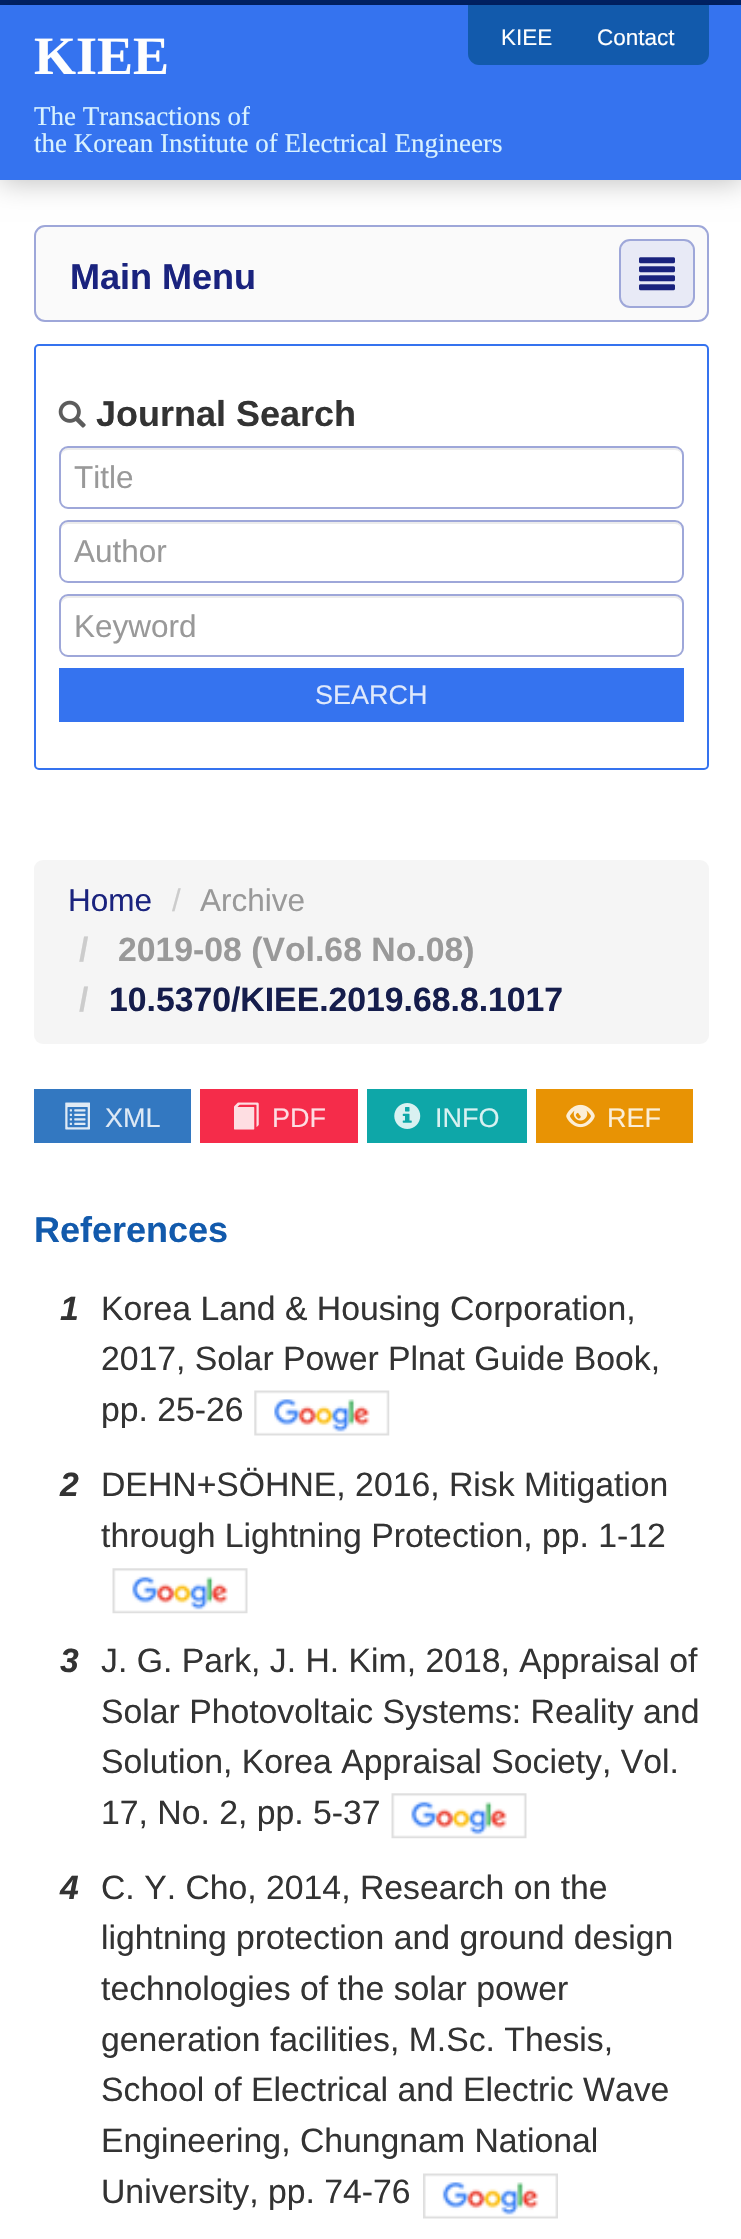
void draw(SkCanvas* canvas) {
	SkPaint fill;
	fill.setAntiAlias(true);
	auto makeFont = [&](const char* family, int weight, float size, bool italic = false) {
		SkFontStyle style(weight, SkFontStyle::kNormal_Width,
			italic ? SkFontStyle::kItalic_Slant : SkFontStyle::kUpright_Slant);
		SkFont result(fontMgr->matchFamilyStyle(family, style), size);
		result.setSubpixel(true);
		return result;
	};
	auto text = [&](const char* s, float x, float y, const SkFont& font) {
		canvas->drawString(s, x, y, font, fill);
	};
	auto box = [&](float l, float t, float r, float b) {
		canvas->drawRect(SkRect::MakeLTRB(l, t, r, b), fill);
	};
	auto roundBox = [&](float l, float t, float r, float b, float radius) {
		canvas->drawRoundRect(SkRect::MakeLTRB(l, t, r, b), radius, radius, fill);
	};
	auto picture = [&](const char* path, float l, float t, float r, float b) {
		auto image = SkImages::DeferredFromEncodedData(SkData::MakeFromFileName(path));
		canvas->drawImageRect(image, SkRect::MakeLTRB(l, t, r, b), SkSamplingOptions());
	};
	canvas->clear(0xFFFFFFFF);
	fill.setColor(0xFF00236A);
	box(0, 0, 741, 5);
	fill.setColor(0x40000000);
	fill.setMaskFilter(SkMaskFilter::MakeBlur(kNormal_SkBlurStyle, 13.5f));
	canvas->drawRect(SkRect::MakeLTRB(0, 7, 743, 182), fill);
	fill.setMaskFilter(nullptr);
	fill.setColor(0xFF3573EF);
	box(0, 5, 741, 180);
	fill.setColor(0xFF125AAC);
	canvas->drawPath(SkPathBuilder().moveTo(468, 5).lineTo(709, 5).lineTo(709, 54).cubicTo(709, 60, 704, 65, 698, 65).lineTo(479, 65).cubicTo(473, 65, 468, 60, 468, 54).close().detach(), fill);
	fill.setColor(0xFFFAFAFA);
	canvas->drawRoundRect(SkRect::MakeLTRB(35, 226, 708, 321), 10, 10, fill);
	fill.setStyle(SkPaint::kStroke_Style);
	fill.setStrokeWidth(2);
	fill.setColor(0xFF9EA7D9);
	canvas->drawRoundRect(SkRect::MakeLTRB(35, 226, 708, 321), 10, 10, fill);
	fill.setStyle(SkPaint::kFill_Style);
	fill.setColor(0xFFE8EAF6);
	canvas->drawRoundRect(SkRect::MakeLTRB(620, 240, 694, 307), 10, 10, fill);
	fill.setStyle(SkPaint::kStroke_Style);
	fill.setColor(0xFF9EA7D9);
	canvas->drawRoundRect(SkRect::MakeLTRB(620, 240, 694, 307), 10, 10, fill);
	picture("image0.png", 639, 257, 675, 291);
	fill.setColor(0xFF3573EF);
	canvas->drawRoundRect(SkRect::MakeLTRB(35, 345, 708, 769), 4, 4, fill);
	picture("image1.png", 58, 400, 86, 428);
	fill.setStyle(SkPaint::kFill_Style);
	fill.setColor(0xFFECECEC);
	canvas->drawPath(SkPathBuilder().moveTo(68, 450).lineTo(675, 450).cubicTo(679, 450, 682, 453, 682, 457).cubicTo(682, 453, 680, 448, 675, 448).lineTo(68, 448).cubicTo(63, 448, 61, 453, 61, 457).cubicTo(61, 453, 64, 450, 68, 450).close().detach(), fill);
	fill.setStyle(SkPaint::kStroke_Style);
	fill.setColor(0xFF9EA7D9);
	canvas->drawRoundRect(SkRect::MakeLTRB(60, 447, 683, 508), 8, 8, fill);
	fill.setStyle(SkPaint::kFill_Style);
	fill.setColor(0xFFECECEC);
	canvas->drawPath(SkPathBuilder().moveTo(68, 524).lineTo(675, 524).cubicTo(679, 524, 682, 527, 682, 531).cubicTo(682, 527, 680, 522, 675, 522).lineTo(68, 522).cubicTo(63, 522, 61, 527, 61, 531).cubicTo(61, 527, 64, 524, 68, 524).close().detach(), fill);
	fill.setStyle(SkPaint::kStroke_Style);
	fill.setColor(0xFF9EA7D9);
	canvas->drawRoundRect(SkRect::MakeLTRB(60, 521, 683, 582), 8, 8, fill);
	fill.setStyle(SkPaint::kFill_Style);
	fill.setColor(0xFFECECEC);
	canvas->drawPath(SkPathBuilder().moveTo(68, 598).lineTo(675, 598).cubicTo(679, 598, 682, 602, 682, 605).cubicTo(682, 601, 680, 596, 675, 596).lineTo(68, 596).cubicTo(63, 596, 61, 601, 61, 605).cubicTo(61, 602, 64, 598, 68, 598).close().detach(), fill);
	fill.setStyle(SkPaint::kStroke_Style);
	fill.setColor(0xFF9EA7D9);
	canvas->drawRoundRect(SkRect::MakeLTRB(60, 595, 683, 656), 8, 8, fill);
	fill.setStyle(SkPaint::kFill_Style);
	fill.setColor(0xFF3573EF);
	box(59, 668, 684, 722);
	fill.setColor(0xFFF5F5F5);
	roundBox(34, 860, 709, 1044, 9);
	fill.setColor(0xFF3378C1);
	box(34, 1089, 191, 1143);
	picture("image2.png", 65, 1102, 90, 1130);
	fill.setColor(0xFFF52C4A);
	box(200, 1089, 358, 1143);
	picture("image3.png", 234, 1102, 259, 1130);
	fill.setColor(0xFF0EA7A8);
	box(367, 1089, 527, 1143);
	picture("image4.png", 394, 1103, 421, 1129);
	fill.setColor(0xFFE89304);
	box(536, 1089, 693, 1143);
	picture("image5.png", 566, 1104, 595, 1128);
	picture("image6.png", 254, 1390, 390, 1436);
	picture("image7.png", 112, 1568, 248, 1614);
	picture("image7.png", 391, 1793, 527, 1839);
	picture("image8.png", 423, 2173, 558, 2219);
	auto font1 = makeFont("Liberation Serif", 700, 54);
	fill.setColor(0xFFFEFEFE);
	text("KIEE", 34, 74, font1);
	auto font2 = makeFont("Liberation Serif", 400, 27);
	fill.setColor(0xFFD8F2FF);
	text("The Transactions of", 34, 125, font2);
	text("the Korean Institute of Electrical Engineers", 34, 152, font2);
	auto font3 = makeFont("Liberation Sans", 400, 22.5f);
	fill.setColor(0xFFFEFEFE);
	text("KIEE", 501, 45, font3);
	text("Contact", 597, 45, font3);
	auto font4 = makeFont("Liberation Sans", 700, 36);
	fill.setColor(0xFF1A237E);
	text("Main Menu", 70, 289, font4);
	fill.setColor(0xFF333333);
	text("Journal Search", 96, 426, font4);
	auto font5 = makeFont("Liberation Sans", 400, 31.5f);
	fill.setColor(0xFF999999);
	text("Title", 74, 488, font5);
	text("Author", 74, 562, font5);
	text("Keyword", 74, 637, font5);
	auto font6 = makeFont("Liberation Sans", 400, 27);
	fill.setColor(0xFFDFE9FC);
	text("SEARCH", 315, 704, font6);
	fill.setColor(0xFF1A237E);
	text("Home", 68, 911, font5);
	fill.setColor(0xFFCCCCCC);
	text("/", 172, 911, font5);
	fill.setColor(0xFF999999);
	text("Archive", 200, 911, font5);
	auto font7 = makeFont("Liberation Sans", 700, 33.75f);
	fill.setColor(0xFFCCCCCC);
	text("/", 79, 961, font7);
	fill.setColor(0xFF999999);
	text("2019-08 (Vol.68 No.08)", 118, 961, font7);
	fill.setColor(0xFFCCCCCC);
	text("/", 79, 1011, font7);
	fill.setColor(0xFF151D4C);
	text("10.5370/KIEE.2019.68.8.1017", 109, 1011, font7);
	fill.setColor(0xFFDEE9F5);
	text("XML", 105, 1127, font6);
	fill.setColor(0xFFFDDDE2);
	text("PDF", 272, 1127, font6);
	fill.setColor(0xFFD8F1F1);
	text("INFO", 435, 1127, font6);
	fill.setColor(0xFFFBEED7);
	text("REF", 607, 1127, font6);
	fill.setColor(0xFF125AAC);
	text("References", 34, 1242, font4);
	auto font8 = makeFont("Liberation Sans", 700, 33.75f, true);
	fill.setColor(0xFF333333);
	text("1", 60, 1320, font8);
	auto font9 = makeFont("Liberation Sans", 400, 33.75f);
	text("Korea Land & Housing Corporation,", 101, 1320, font9);
	text("2017, Solar Power Plnat Guide Book,", 101, 1370, font9);
	text("pp. 25-26", 101, 1421, font9);
	text("2", 60, 1496, font8);
	text("DEHN+SÖHNE, 2016, Risk Mitigation", 101, 1496, font9);
	text("through Lightning Protection, pp. 1-12", 101, 1547, font9);
	text("3", 60, 1672, font8);
	text("J. G. Park, J. H. Kim, 2018, Appraisal of", 101, 1672, font9);
	text("Solar Photovoltaic Systems: Reality and", 101, 1723, font9);
	text("Solution, Korea Appraisal Society, Vol.", 101, 1773, font9);
	text("17, No. 2, pp. 5-37", 101, 1824, font9);
	text("4", 60, 1899, font8);
	text("C. Y. Cho, 2014, Research on the", 101, 1899, font9);
	text("lightning protection and ground design", 101, 1949, font9);
	text("technologies of the solar power", 101, 2000, font9);
	text("generation facilities, M.Sc. Thesis,", 101, 2051, font9);
	text("School of Electrical and Electric Wave", 101, 2101, font9);
	text("Engineering, Chungnam National", 101, 2152, font9);
	text("University, pp. 74-76", 101, 2203, font9);
}
